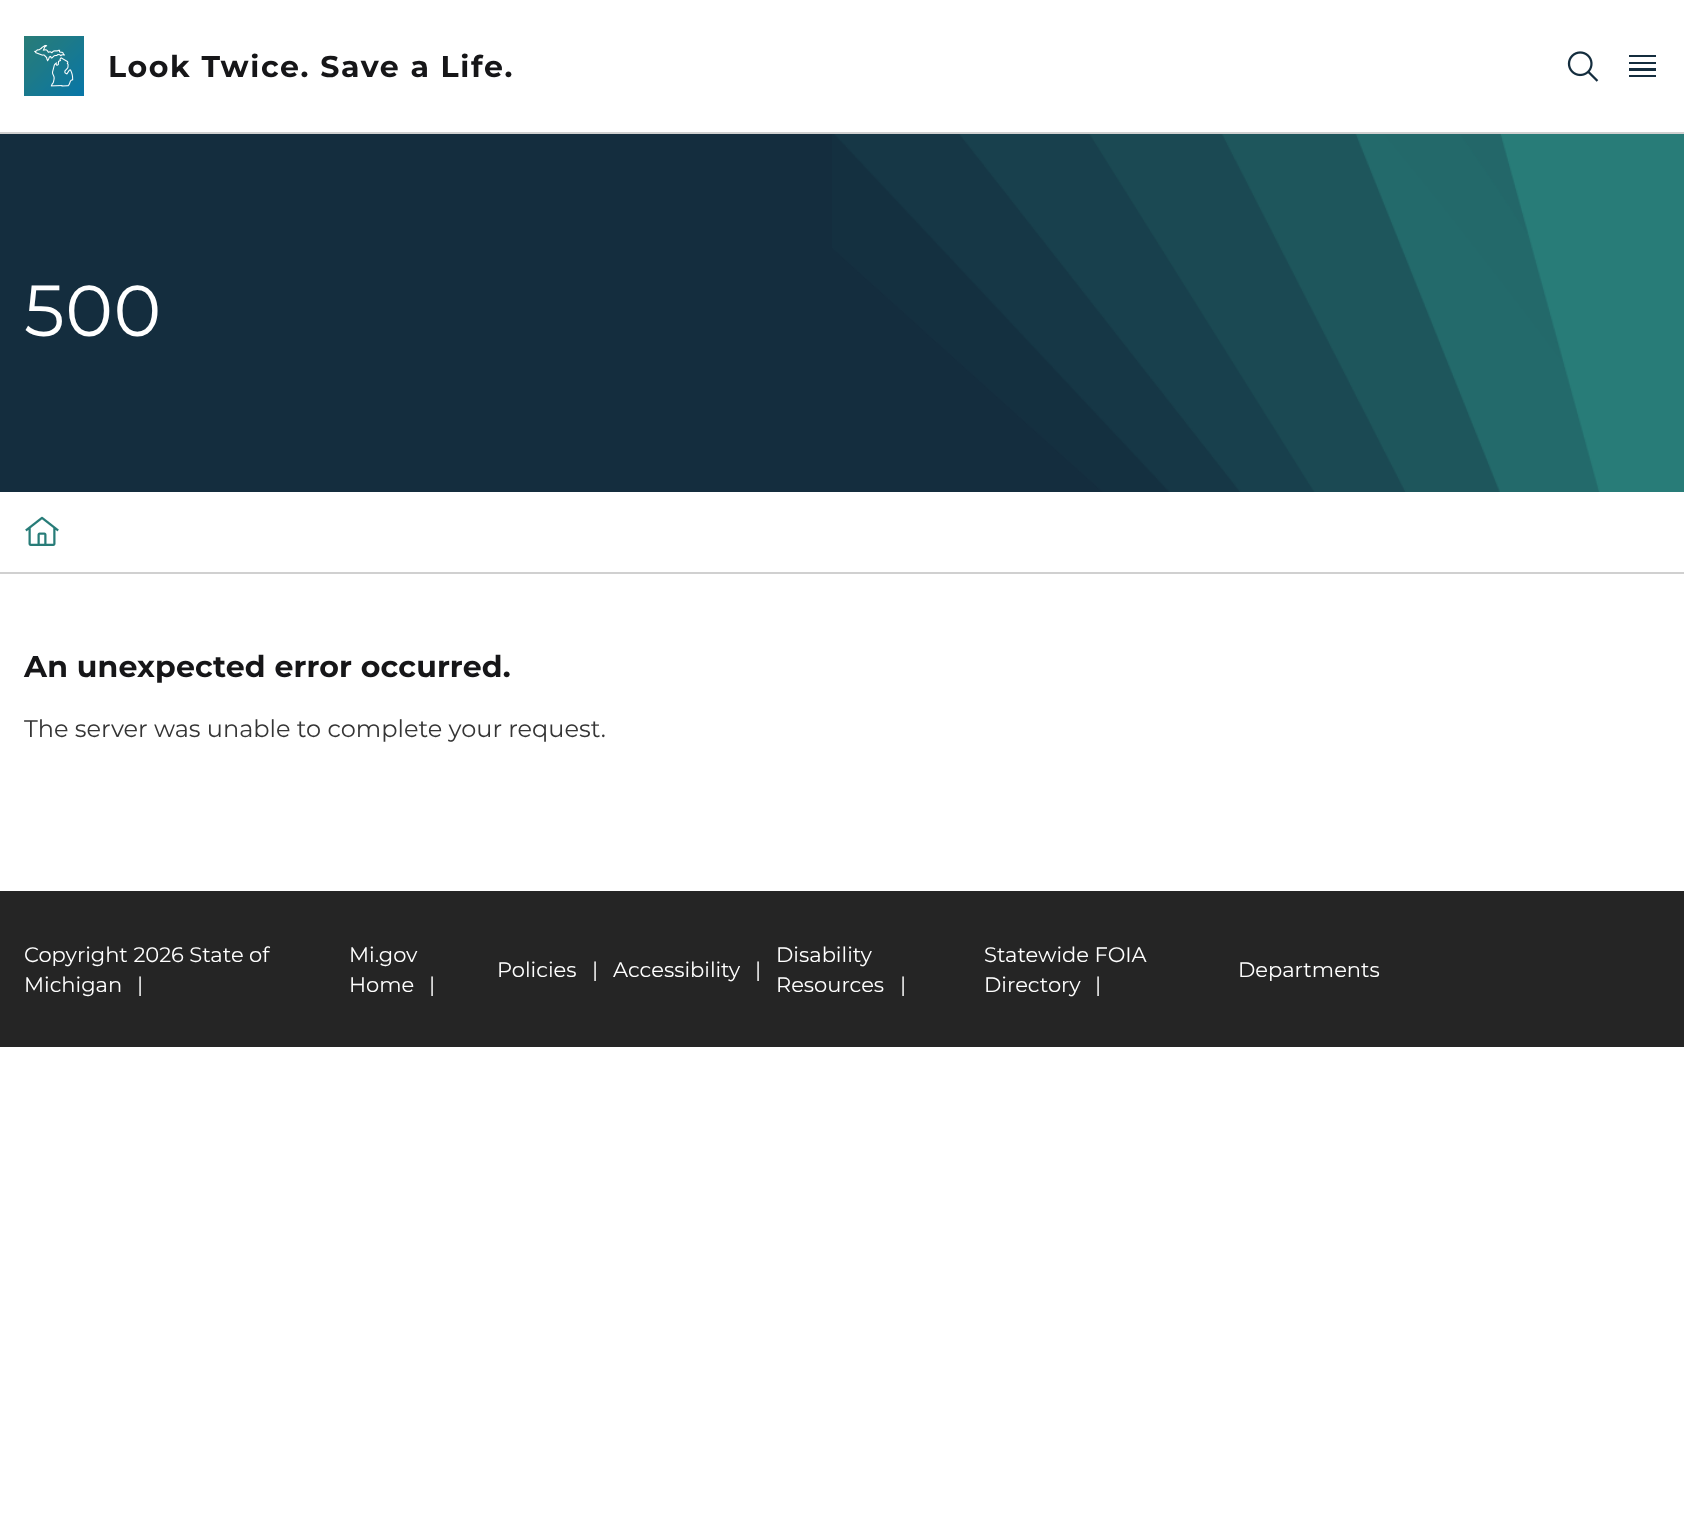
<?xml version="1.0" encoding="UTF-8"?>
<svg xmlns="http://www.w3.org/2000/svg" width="1684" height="1520">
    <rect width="100%" height="100%" fill="#FFFFFF"/>
    <rect x="0" y="132" width="1684" height="2" fill="#D0D0D0"/>
    <image x="24" y="36" width="60" height="60" href="img_01.png"/>
    <text x="108" y="77" font-family="Montserrat" font-size="30" font-weight="700" letter-spacing="1.6" fill="#161618">Look Twice. Save a Life.</text>
    <image x="1567" y="51" width="32" height="31" href="img_02.png"/>
    <rect x="1629" y="75" width="27" height="2" fill="#142D3E"/>
    <rect x="1629" y="62" width="27" height="2" fill="#142D3E"/>
    <rect x="1629" y="68" width="27" height="3" fill="#142D3E"/>
    <rect x="1629" y="55" width="27" height="2" fill="#142D3E"/>
    <rect x="0" y="134" width="1600" height="358" fill="#142D3E"/>
    <text x="24" y="336" font-family="Montserrat" font-size="72" letter-spacing="0.5" fill="#FFFFFF">500</text>
    <image x="832" y="134" width="852" height="358" href="img_03.png"/>
    <rect x="0" y="572" width="1684" height="2" fill="#D0D0D0"/>
    <image x="25" y="516" width="34" height="30" href="img_04.png"/>
    <text x="24" y="677" font-family="Montserrat" font-size="30" font-weight="700" letter-spacing="0.15" fill="#161618">An unexpected error occurred.</text>
    <text x="24" y="737" font-family="Montserrat" font-size="24" fill="#353535">The server was unable to complete your request.</text>
    <rect x="0" y="891" width="1684" height="156" fill="#252525"/>
    <text font-family="Montserrat" font-size="21" fill="#FFFFFF">
        <tspan x="24" y="962">Copyright 2026 State of</tspan>
        <tspan x="24" y="992">Michigan</tspan>
    </text>
    <text x="137" y="992" font-family="Montserrat" font-size="21" fill="#FFFFFF">|</text>
    <text font-family="Montserrat" font-size="21" fill="#FFFFFF">
        <tspan x="349" y="962">Mi.gov</tspan>
        <tspan x="349" y="992">Home</tspan>
    </text>
    <text x="429" y="992" font-family="Montserrat" font-size="21" fill="#FFFFFF">|</text>
    <text x="497" y="977" font-family="Montserrat" font-size="21" fill="#FFFFFF">Policies</text>
    <text x="592" y="977" font-family="Montserrat" font-size="21" fill="#FFFFFF">|</text>
    <text x="613" y="977" font-family="Montserrat" font-size="21" fill="#FFFFFF">Accessibility</text>
    <text x="755" y="977" font-family="Montserrat" font-size="21" fill="#FFFFFF">|</text>
    <text font-family="Montserrat" font-size="21" fill="#FFFFFF">
        <tspan x="776" y="962">Disability</tspan>
        <tspan x="776" y="992">Resources</tspan>
    </text>
    <text x="900" y="992" font-family="Montserrat" font-size="21" fill="#FFFFFF">|</text>
    <text font-family="Montserrat" font-size="21" fill="#FFFFFF">
        <tspan x="984" y="962">Statewide FOIA</tspan>
        <tspan x="984" y="992">Directory</tspan>
    </text>
    <text x="1095" y="992" font-family="Montserrat" font-size="21" fill="#FFFFFF">|</text>
    <text x="1238" y="977" font-family="Montserrat" font-size="21" fill="#FFFFFF">Departments</text>
</svg>
